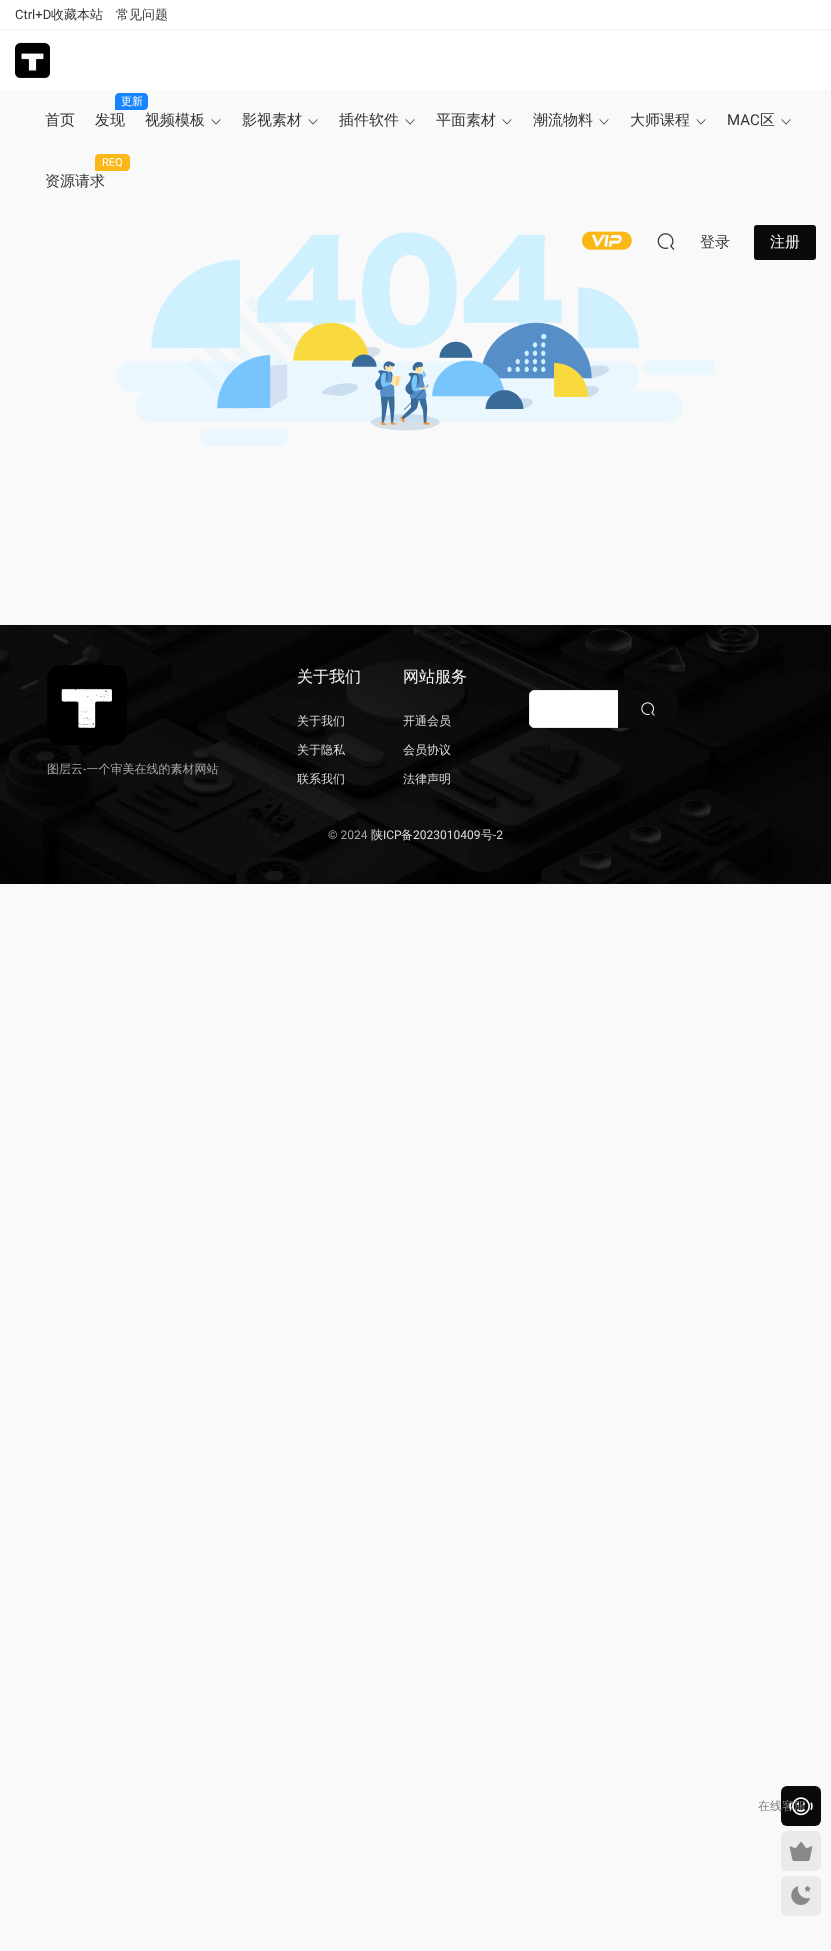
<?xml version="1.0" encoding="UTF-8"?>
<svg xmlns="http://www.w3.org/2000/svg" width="831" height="1951">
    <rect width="100%" height="100%" fill="#F9F9F9"/>
    <rect x="0" y="0" width="831" height="29" fill="#FFFFFF"/>
    <rect x="0" y="29" width="831" height="1" fill="#F1F1F1"/>
    <text x="15" y="19" font-family="Roboto" font-size="13" fill="#333333">Ctrl+D</text>
    <text x="51" y="19" font-family="WenQuanYi Zen Hei" font-size="13" font-weight="500" fill="#333333">收藏本站</text>
    <text x="116" y="19" font-family="WenQuanYi Zen Hei" font-size="13" font-weight="500" fill="#333333">常见问题</text>
    <rect x="0" y="30" width="831" height="60" fill="#FFFFFF"/>
    <image x="15" y="42" width="35" height="36" href="img_01.png"/>
    <text x="45" y="125" font-family="WenQuanYi Zen Hei" font-size="15" font-weight="500" fill="#333333">首页</text>
    <path d="M 119 93 H 144 C 146 93 148 95 148 97 V 106 C 148 108 146 110 144 110 H 115 V 97 C 115 95 117 93 119 93 Z" fill="#1784FF"/>
    <text x="121" y="105" font-family="WenQuanYi Zen Hei" font-size="11" font-weight="500" fill="#FFFFFF">更新</text>
    <text x="95" y="125" font-family="WenQuanYi Zen Hei" font-size="15" font-weight="500" fill="#333333">发现</text>
    <text x="145" y="125" font-family="WenQuanYi Zen Hei" font-size="15" font-weight="500" fill="#333333">视频模板</text>
    <image x="211" y="119" width="10" height="6" href="img_02.png"/>
    <text x="242" y="125" font-family="WenQuanYi Zen Hei" font-size="15" font-weight="500" fill="#333333">影视素材</text>
    <image x="308" y="119" width="10" height="6" href="img_02.png"/>
    <text x="339" y="125" font-family="WenQuanYi Zen Hei" font-size="15" font-weight="500" fill="#333333">插件软件</text>
    <image x="405" y="119" width="10" height="6" href="img_02.png"/>
    <text x="436" y="125" font-family="WenQuanYi Zen Hei" font-size="15" font-weight="500" fill="#333333">平面素材</text>
    <image x="502" y="119" width="10" height="6" href="img_02.png"/>
    <text x="533" y="125" font-family="WenQuanYi Zen Hei" font-size="15" font-weight="500" fill="#333333">潮流物料</text>
    <image x="599" y="119" width="10" height="6" href="img_02.png"/>
    <text x="630" y="125" font-family="WenQuanYi Zen Hei" font-size="15" font-weight="500" fill="#333333">大师课程</text>
    <image x="696" y="119" width="10" height="6" href="img_02.png"/>
    <text x="727" y="125" font-family="Roboto" font-size="15" fill="#333333">MAC</text>
    <text x="760" y="125" font-family="WenQuanYi Zen Hei" font-size="15" font-weight="500" fill="#333333">区</text>
    <image x="781" y="119" width="10" height="6" href="img_02.png"/>
    <path d="M 99 154 H 126 C 128 154 130 156 130 158 V 167 C 130 169 128 171 126 171 H 95 V 158 C 95 156 97 154 99 154 Z" fill="#FBB715"/>
    <text x="102" y="166" font-family="Roboto" font-size="11" fill="#FFFFFF">REQ</text>
    <text x="45" y="186" font-family="WenQuanYi Zen Hei" font-size="15" font-weight="500" fill="#333333">资源请求</text>
    <image x="116" y="232" width="599" height="215" href="img_05.png"/>
    <image x="582" y="231" width="50" height="19" href="img_03.png"/>
    <image x="657" y="233" width="18" height="17" href="img_04.png"/>
    <text x="700" y="247" font-family="WenQuanYi Zen Hei" font-size="15" font-weight="500" fill="#333333">登录</text>
    <rect x="754" y="225" width="62" height="35" rx="3" fill="#0A0A0A"/>
    <text x="770" y="247" font-family="WenQuanYi Zen Hei" font-size="15" font-weight="500" fill="#FFFFFF">注册</text>
    <image x="0" y="625" width="831" height="259" href="img_06.png"/>
    <text x="297" y="682" font-family="WenQuanYi Zen Hei" font-size="16" font-weight="500" fill="#F5F5F5">关于我们</text>
    <text x="297" y="725" font-family="WenQuanYi Zen Hei" font-size="12" font-weight="500" fill="#DCDCDC">关于我们</text>
    <text x="297" y="754" font-family="WenQuanYi Zen Hei" font-size="12" font-weight="500" fill="#DCDCDC">关于隐私</text>
    <text x="297" y="783" font-family="WenQuanYi Zen Hei" font-size="12" font-weight="500" fill="#DCDCDC">联系我们</text>
    <text x="403" y="682" font-family="WenQuanYi Zen Hei" font-size="16" font-weight="500" fill="#F5F5F5">网站服务</text>
    <text x="403" y="725" font-family="WenQuanYi Zen Hei" font-size="12" font-weight="500" fill="#DCDCDC">开通会员</text>
    <text x="403" y="754" font-family="WenQuanYi Zen Hei" font-size="12" font-weight="500" fill="#DCDCDC">会员协议</text>
    <text x="403" y="783" font-family="WenQuanYi Zen Hei" font-size="12" font-weight="500" fill="#DCDCDC">法律声明</text>
    <path d="M 535 690 H 618 V 728 H 535 C 531.5 728 529 725.5 529 722 V 696 C 529 692.5 531.5 690 535 690 Z" fill="#FFFFFF"/>
    <path d="M 535 690 H 618 V 728 H 535 C 532 728 529 725 529 722 V 696 C 529 693 532 690 535 690 Z M 535 691 H 618 V 727 H 535 C 532 727 530 725 530 722 V 696 C 530 693 532 691 535 691 Z" fill="#EAEAEA" fill-rule="evenodd"/>
    <path d="M 618 690 H 672 C 675.5 690 678 692.5 678 696 V 722 C 678 725.5 675.5 728 672 728 H 618 Z" fill="#0A0A0A"/>
    <image x="641" y="702" width="14" height="14" href="img_07.png"/>
    <image x="47" y="665" width="80" height="80" href="img_08.png"/>
    <text x="47" y="773" font-family="WenQuanYi Zen Hei" font-size="12" font-weight="500" fill="#A7A7A7">图层云 一个审美在线的素材网站</text>
    <text x="83" y="773" font-family="Roboto" font-size="12" fill="#A7A7A7">-</text>
    <text x="328" y="839" font-family="Roboto" font-size="12" fill="#A7A7A7">© 2024</text>
    <text x="371" y="839" font-family="WenQuanYi Zen Hei" font-size="12" font-weight="500" fill="#DCDCDC">陕</text>
    <text x="383" y="839" font-family="Roboto" font-size="12" fill="#DCDCDC">ICP</text>
    <text x="401" y="839" font-family="WenQuanYi Zen Hei" font-size="12" font-weight="500" fill="#DCDCDC">备</text>
    <text x="413" y="839" font-family="Roboto" font-size="12" fill="#DCDCDC">2023010409</text>
    <text x="481" y="839" font-family="WenQuanYi Zen Hei" font-size="12" font-weight="500" fill="#DCDCDC">号</text>
    <text x="493" y="839" font-family="Roboto" font-size="12" fill="#DCDCDC">-2</text>
    <rect x="781" y="1786" width="40" height="40" rx="6" fill="#0A0A0A"/>
    <text x="758" y="1810" font-family="WenQuanYi Zen Hei" font-size="12" font-weight="500" fill="#7D7D7D">在线客服</text>
    <image x="789" y="1797" width="24" height="19" href="img_09.png"/>
    <rect x="781" y="1831" width="40" height="40" rx="6" fill="#E9EAEA"/>
    <image x="789" y="1841" width="24" height="21" href="img_10.png"/>
    <rect x="781" y="1876" width="40" height="40" rx="6" fill="#E9EAEA"/>
    <image x="791" y="1885" width="20" height="20" href="img_11.png"/>
</svg>
